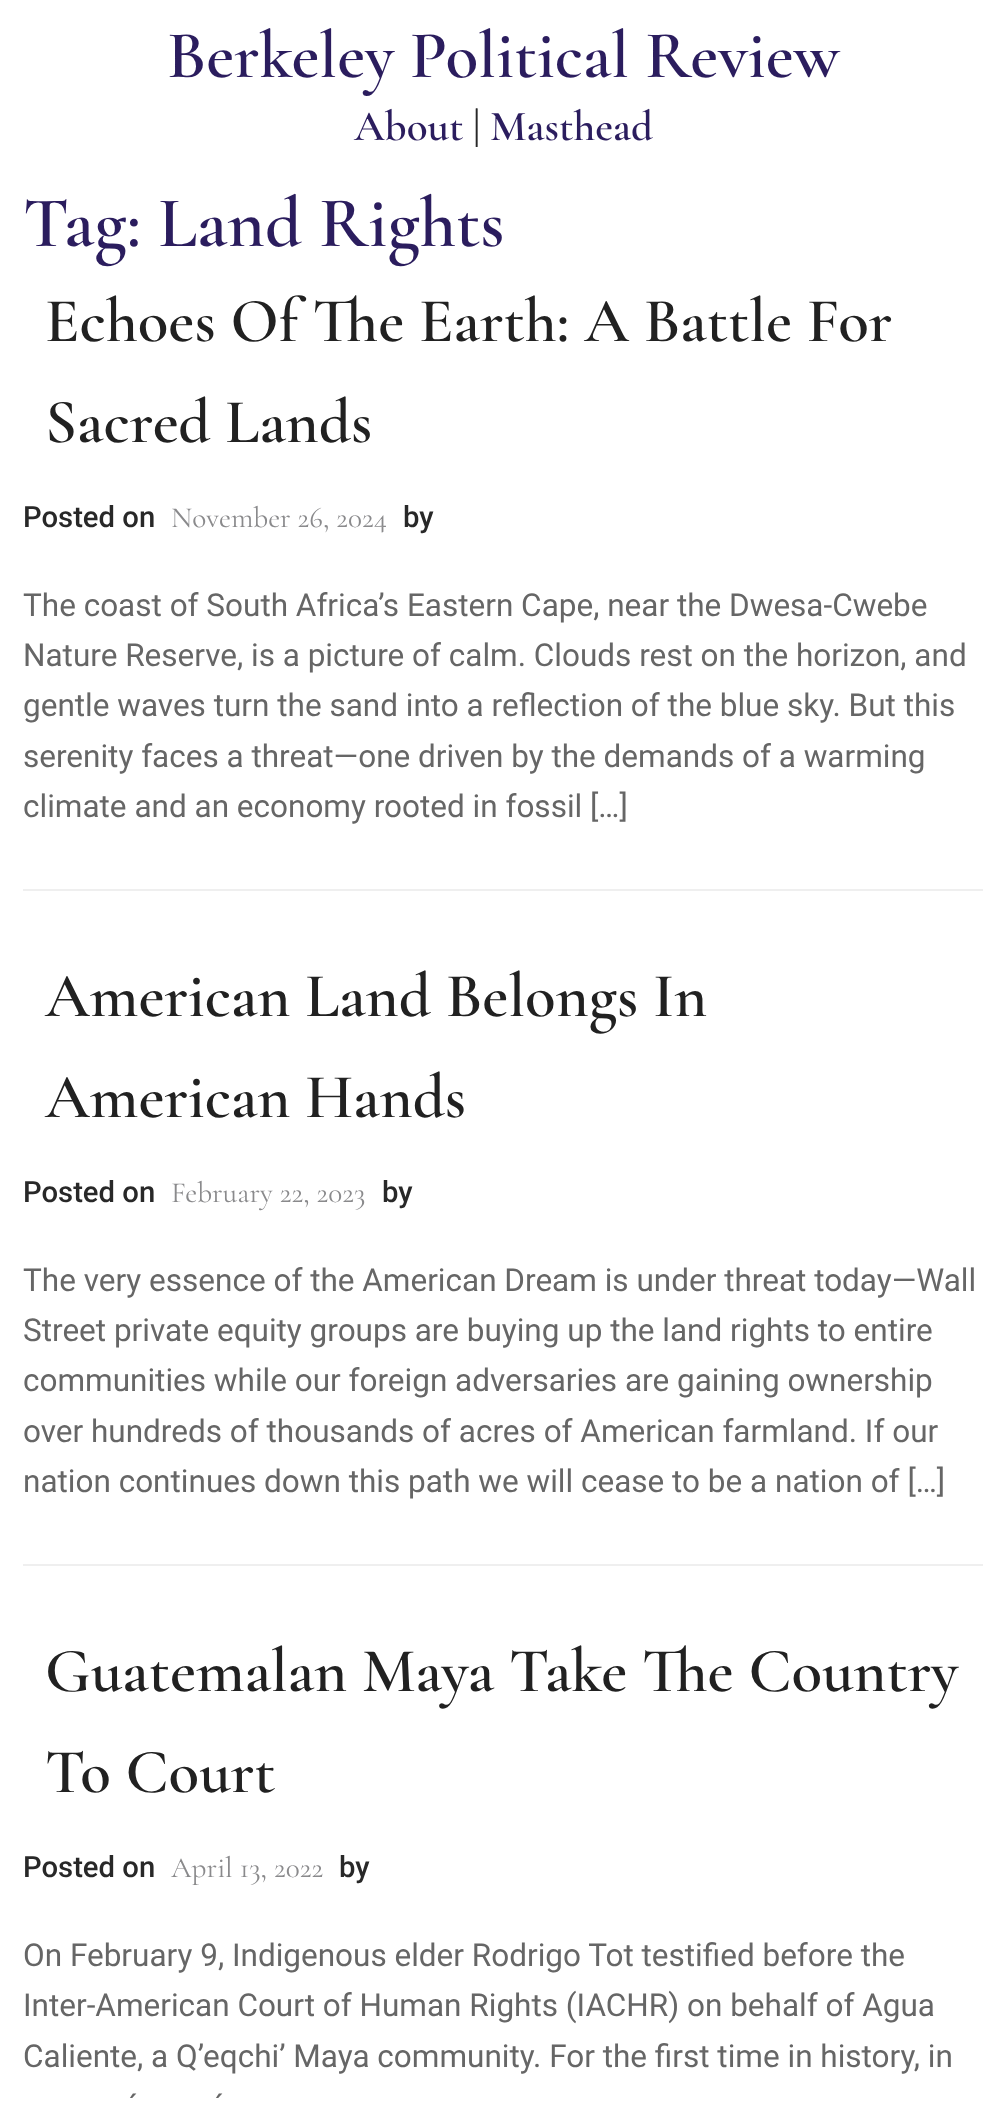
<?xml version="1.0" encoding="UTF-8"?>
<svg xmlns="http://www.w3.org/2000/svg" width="1004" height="2111">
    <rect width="100%" height="100%" fill="#FFFFFF"/>
    <text x="167" y="77" font-family="Cormorant Garamond" font-size="67.5" font-weight="600" fill="#2B1D5E">Berkeley Political Review</text>
    <text x="354" y="140" font-family="Cormorant Garamond" font-size="43" font-weight="600" fill="#2B1D5E">About</text>
    <text x="473" y="140" font-family="Cormorant Garamond" font-size="43" font-weight="600" fill="#282828">|</text>
    <text x="490" y="140" font-family="Cormorant Garamond" font-size="43" font-weight="600" fill="#2B1D5E">Masthead</text>
    <text x="23" y="246" font-family="Cormorant Garamond" font-size="72" font-weight="600" fill="#2B1D5E">Tag: Land Rights</text>
    <rect x="23" y="889" width="960" height="2" fill="#EFEFEF"/>
    <text font-family="Cormorant Garamond" font-size="63" font-weight="600" fill="#212121">
        <tspan x="45" y="341">Echoes Of The Earth: A Battle For</tspan>
        <tspan x="45" y="442">Sacred Lands</tspan>
    </text>
    <text x="23" y="527" font-family="Roboto" font-size="29.25" font-weight="500" fill="#282828">Posted on</text>
    <text x="171" y="527" font-family="Cormorant Garamond" font-size="29.25" fill="#8A8A8C">November 26, 2024</text>
    <text x="403" y="527" font-family="Roboto" font-size="29.25" font-weight="500" fill="#282828">by</text>
    <text font-family="Roboto" font-size="31.5" fill="#666666">
        <tspan x="23" y="616">The coast of South Africa’s Eastern Cape, near the Dwesa-Cwebe</tspan>
        <tspan x="23" y="666">Nature Reserve, is a picture of calm. Clouds rest on the horizon, and</tspan>
        <tspan x="23" y="716">gentle waves turn the sand into a reflection of the blue sky. But this</tspan>
        <tspan x="23" y="767">serenity faces a threat—one driven by the demands of a warming</tspan>
        <tspan x="23" y="817">climate and an economy rooted in fossil […]</tspan>
    </text>
    <rect x="23" y="1564" width="960" height="2" fill="#EFEFEF"/>
    <text font-family="Cormorant Garamond" font-size="63" font-weight="600" fill="#212121">
        <tspan x="45" y="1016">American Land Belongs In</tspan>
        <tspan x="45" y="1117">American Hands</tspan>
    </text>
    <text x="23" y="1202" font-family="Roboto" font-size="29.25" font-weight="500" fill="#282828">Posted on</text>
    <text x="171" y="1202" font-family="Cormorant Garamond" font-size="29.25" fill="#8A8A8C">February 22, 2023</text>
    <text x="382" y="1202" font-family="Roboto" font-size="29.25" font-weight="500" fill="#282828">by</text>
    <text font-family="Roboto" font-size="31.5" fill="#666666">
        <tspan x="23" y="1291">The very essence of the American Dream is under threat today—Wall</tspan>
        <tspan x="23" y="1341">Street private equity groups are buying up the land rights to entire</tspan>
        <tspan x="23" y="1391">communities while our foreign adversaries are gaining ownership</tspan>
        <tspan x="23" y="1442">over hundreds of thousands of acres of American farmland. If our</tspan>
        <tspan x="23" y="1492">nation continues down this path we will cease to be a nation of […]</tspan>
    </text>
    <text font-family="Cormorant Garamond" font-size="63" font-weight="600" fill="#212121">
        <tspan x="45" y="1691">Guatemalan Maya Take The Country</tspan>
        <tspan x="45" y="1792">To Court</tspan>
    </text>
    <text x="23" y="1877" font-family="Roboto" font-size="29.25" font-weight="500" fill="#282828">Posted on</text>
    <text x="171" y="1877" font-family="Cormorant Garamond" font-size="29.25" fill="#8A8A8C">April 13, 2022</text>
    <text x="339" y="1877" font-family="Roboto" font-size="29.25" font-weight="500" fill="#282828">by</text>
    <text font-family="Roboto" font-size="31.5" fill="#666666">
        <tspan x="23" y="1966">On February 9, Indigenous elder Rodrigo Tot testified before the</tspan>
        <tspan x="23" y="2016">Inter-American Court of Human Rights (IACHR) on behalf of Agua</tspan>
        <tspan x="23" y="2067">Caliente, a Q’eqchi’ Maya community. For the first time in history, in</tspan>
    </text>
    <text x="128" y="2117" font-family="Roboto" font-size="31.5" fill="#666666">´</text>
    <text x="214" y="2117" font-family="Roboto" font-size="31.5" fill="#666666">´</text>
</svg>
